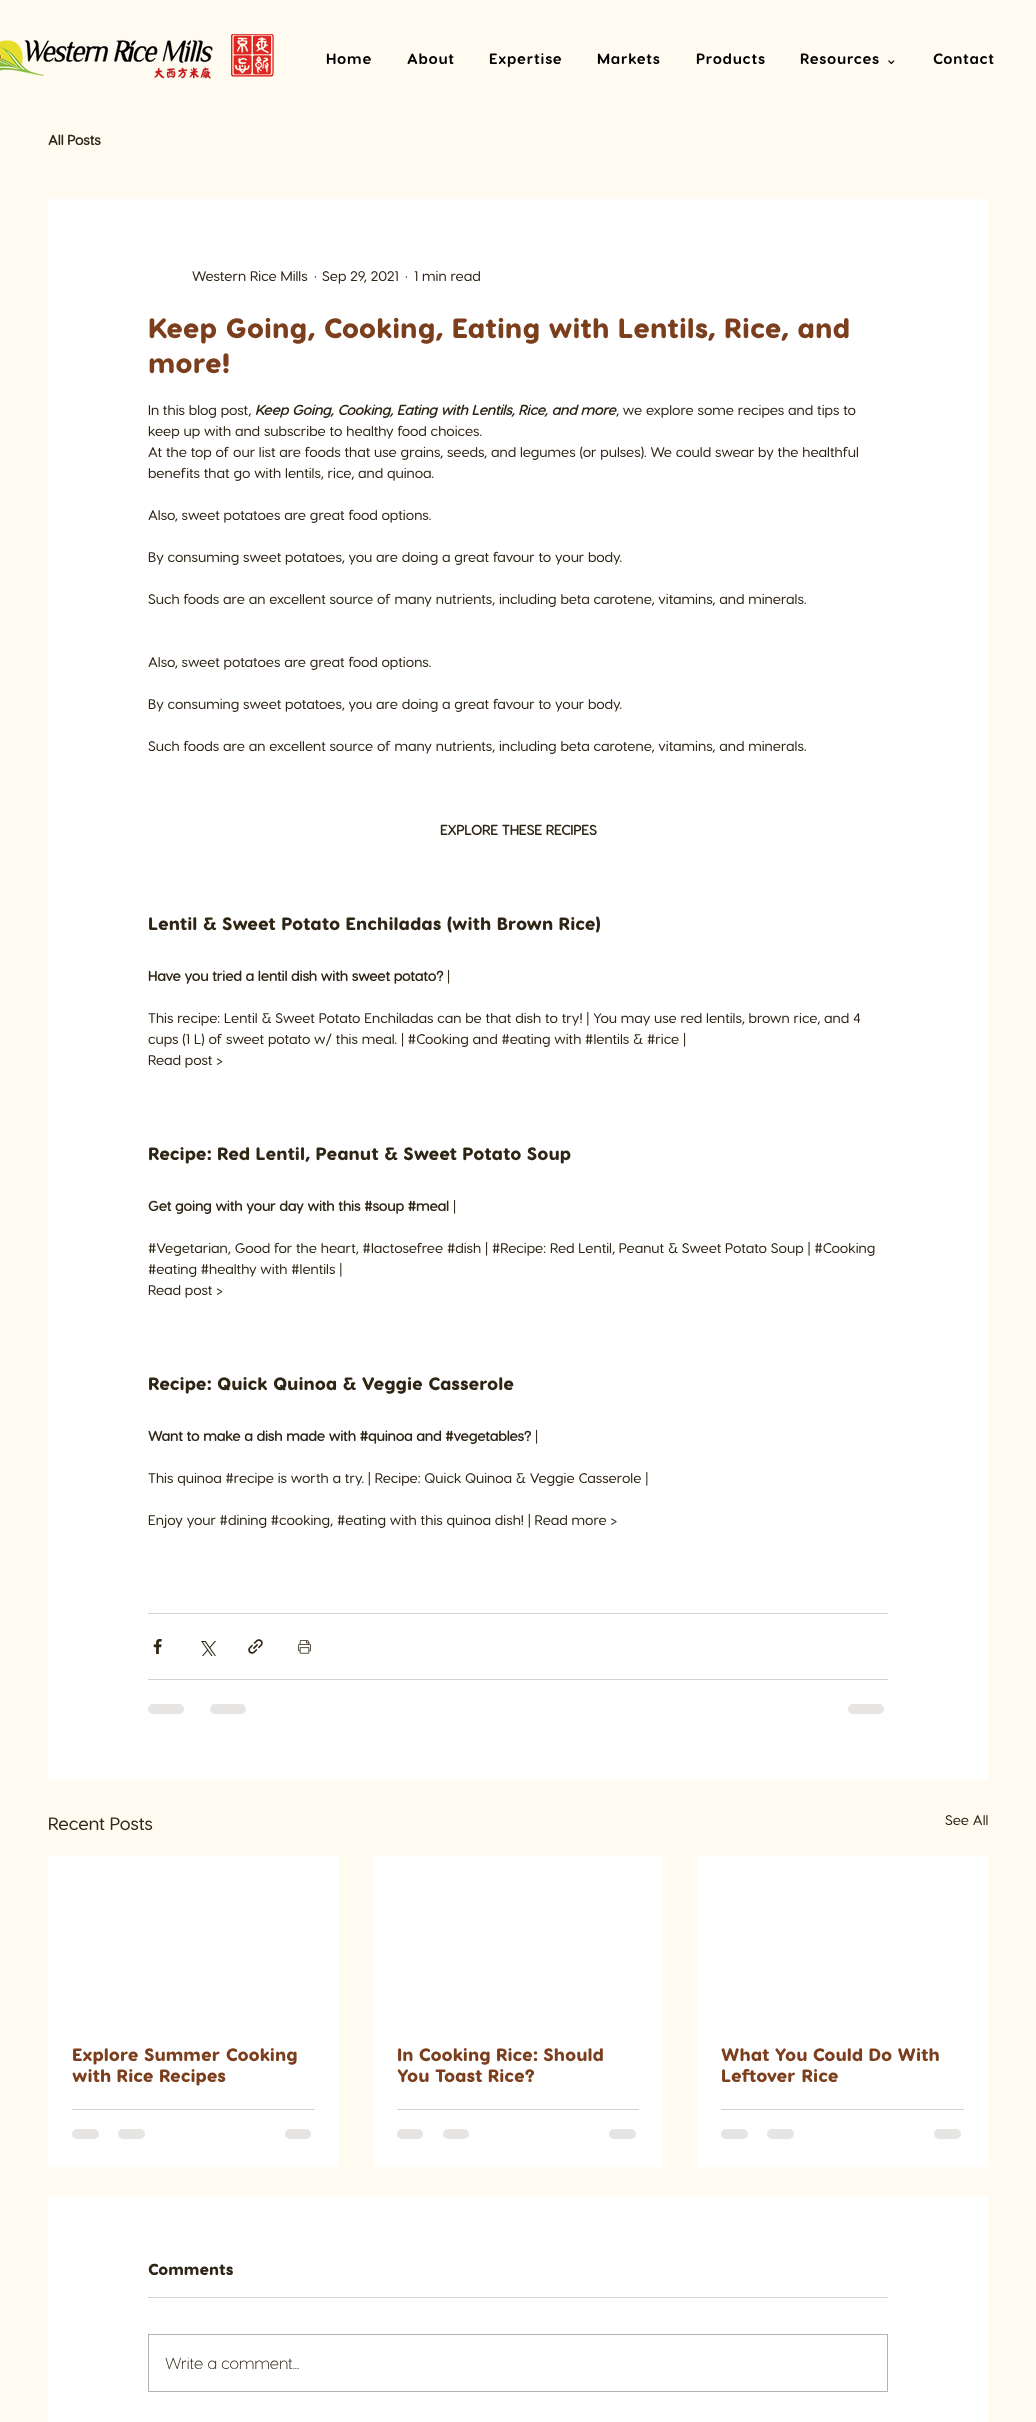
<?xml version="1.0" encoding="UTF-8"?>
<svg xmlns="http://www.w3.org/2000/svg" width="1036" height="2422">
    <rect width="100%" height="100%" fill="#FFFBF1"/>
    <image x="0" y="34" width="274" height="45" href="img_01.png"/>
    <text x="326" y="64" font-family="'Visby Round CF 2'" font-size="15" font-weight="700" letter-spacing="0.75" fill="#000000">Home</text>
    <text x="407" y="64" font-family="'Visby Round CF 2'" font-size="15" font-weight="700" letter-spacing="0.75" fill="#000000">About</text>
    <text x="489" y="64" font-family="'Visby Round CF 2'" font-size="15" font-weight="700" letter-spacing="0.75" fill="#000000">Expertise</text>
    <text x="597" y="64" font-family="'Visby Round CF 2'" font-size="15" font-weight="700" letter-spacing="0.75" fill="#000000">Markets</text>
    <text x="696" y="64" font-family="'Visby Round CF 2'" font-size="15" font-weight="700" letter-spacing="0.75" fill="#000000">Products</text>
    <text x="800" y="64" font-family="'Visby Round CF 2'" font-size="15" font-weight="700" letter-spacing="0.75" fill="#000000">Resources</text>
    <text x="885" y="64" font-family="DejaVu Sans" font-size="15" letter-spacing="0.75" fill="#000000">⌄</text>
    <text x="933" y="64" font-family="'Visby Round CF 2'" font-size="15" font-weight="700" letter-spacing="0.75" fill="#000000">Contact</text>
    <text x="48" y="145" font-family="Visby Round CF" font-size="14" font-weight="700" fill="#2E2515">All Posts</text>
    <rect x="48" y="199" width="940" height="1580" fill="#FFFFFF"/>
    <text x="192" y="281" font-family="Visby Round CF" font-size="14" font-weight="500" fill="#2E2515">Western Rice Mills</text>
    <text x="314" y="281" font-family="Visby Round CF" font-size="14" font-weight="500" fill="#2E2515">·</text>
    <text x="322" y="281" font-family="Visby Round CF" font-size="14" font-weight="500" fill="#2E2515">Sep 29, 2021</text>
    <text x="405" y="281" font-family="Visby Round CF" font-size="14" font-weight="500" fill="#2E2515">·</text>
    <text x="414" y="281" font-family="Visby Round CF" font-size="14" font-weight="500" fill="#2E2515">1 min read</text>
    <text font-family="Visby Round CF" font-size="28" font-weight="900" fill="#7C3F1E">
        <tspan x="148" y="338">Keep Going, Cooking, Eating with Lentils, Rice, and</tspan>
        <tspan x="148" y="373">more!</tspan>
    </text>
    <text x="148" y="415" font-family="Visby Round CF" font-size="14" font-weight="500" fill="#2E2515">In this blog post,</text>
    <text x="255" y="415" font-family="Visby Round CF" font-size="14" font-weight="700" font-style="italic" fill="#2E2515">Keep Going, Cooking, Eating with Lentils, Rice, and more</text>
    <text x="616" y="415" font-family="Visby Round CF" font-size="14" font-weight="500" fill="#2E2515">, we explore some recipes and tips to</text>
    <text font-family="Visby Round CF" font-size="14" font-weight="500" fill="#2E2515">
        <tspan x="148" y="436">keep up with and subscribe to healthy food choices.</tspan>
        <tspan x="148" y="457">At the top of our list are foods that use grains, seeds, and legumes (or pulses). We could swear by the healthful</tspan>
        <tspan x="148" y="478">benefits that go with lentils, rice, and quinoa.</tspan>
    </text>
    <text x="148" y="520" font-family="Visby Round CF" font-size="14" font-weight="500" fill="#2E2515">Also, sweet potatoes are great food options.</text>
    <text x="148" y="562" font-family="Visby Round CF" font-size="14" font-weight="500" fill="#2E2515">By consuming sweet potatoes, you are doing a great favour to your body.</text>
    <text x="148" y="604" font-family="Visby Round CF" font-size="14" font-weight="500" fill="#2E2515">Such foods are an excellent source of many nutrients, including beta carotene, vitamins, and minerals.</text>
    <text x="148" y="667" font-family="Visby Round CF" font-size="14" font-weight="500" fill="#2E2515">Also, sweet potatoes are great food options.</text>
    <text x="148" y="709" font-family="Visby Round CF" font-size="14" font-weight="500" fill="#2E2515">By consuming sweet potatoes, you are doing a great favour to your body.</text>
    <text x="148" y="751" font-family="Visby Round CF" font-size="14" font-weight="500" fill="#2E2515">Such foods are an excellent source of many nutrients, including beta carotene, vitamins, and minerals.</text>
    <text x="440" y="835" font-family="Visby Round CF" font-size="14" font-weight="700" fill="#2E2515">EXPLORE THESE RECIPES</text>
    <text x="148" y="930" font-family="Visby Round CF" font-size="18" font-weight="900" fill="#2E2515">Lentil &amp; Sweet Potato Enchiladas (with Brown Rice)</text>
    <text x="148" y="981" font-family="Visby Round CF" font-size="14" font-weight="700" fill="#2E2515">Have you tried a lentil dish with sweet potato?</text>
    <text x="447" y="981" font-family="Visby Round CF" font-size="14" font-weight="500" fill="#2E2515">|</text>
    <text font-family="Visby Round CF" font-size="14" font-weight="500" fill="#2E2515">
        <tspan x="148" y="1023">This recipe: Lentil &amp; Sweet Potato Enchiladas can be that dish to try! | You may use red lentils, brown rice, and 4</tspan>
        <tspan x="148" y="1044">cups (1 L) of sweet potato w/ this meal. | #Cooking and #eating with #lentils &amp; #rice |</tspan>
        <tspan x="148" y="1065">Read post &gt;</tspan>
    </text>
    <text x="148" y="1160" font-family="Visby Round CF" font-size="18" font-weight="900" fill="#2E2515">Recipe: Red Lentil, Peanut &amp; Sweet Potato Soup</text>
    <text x="148" y="1211" font-family="Visby Round CF" font-size="14" font-weight="700" fill="#2E2515">Get going with your day with this #soup #meal</text>
    <text x="453" y="1211" font-family="Visby Round CF" font-size="14" font-weight="500" fill="#2E2515">|</text>
    <text font-family="Visby Round CF" font-size="14" font-weight="500" fill="#2E2515">
        <tspan x="148" y="1253">#Vegetarian, Good for the heart, #lactosefree #dish | #Recipe: Red Lentil, Peanut &amp; Sweet Potato Soup | #Cooking</tspan>
        <tspan x="148" y="1274">#eating #healthy with #lentils |</tspan>
        <tspan x="148" y="1295">Read post &gt;</tspan>
    </text>
    <text x="148" y="1390" font-family="Visby Round CF" font-size="18" font-weight="900" fill="#2E2515">Recipe: Quick Quinoa &amp; Veggie Casserole</text>
    <text x="148" y="1441" font-family="Visby Round CF" font-size="14" font-weight="700" fill="#2E2515">Want to make a dish made with #quinoa and #vegetables?</text>
    <text x="535" y="1441" font-family="Visby Round CF" font-size="14" font-weight="500" fill="#2E2515">|</text>
    <text x="148" y="1483" font-family="Visby Round CF" font-size="14" font-weight="500" fill="#2E2515">This quinoa #recipe is worth a try. | Recipe: Quick Quinoa &amp; Veggie Casserole |</text>
    <text x="148" y="1525" font-family="Visby Round CF" font-size="14" font-weight="500" fill="#2E2515">Enjoy your #dining #cooking, #eating with this quinoa dish! | Read more &gt;</text>
    <rect x="148" y="1613" width="740" height="1" fill="#D5D3D0"/>
    <image x="153" y="1639" width="9" height="15" href="img_02.png"/>
    <image x="201" y="1641" width="15" height="15" href="img_03.png"/>
    <image x="248" y="1639" width="15" height="15" href="img_04.png"/>
    <image x="298" y="1640" width="13" height="14" href="img_05.png"/>
    <rect x="148" y="1679" width="740" height="1" fill="#D5D3D0"/>
    <rect x="148" y="1704" width="36" height="10" rx="5" fill="#E6E5E3"/>
    <rect x="210" y="1704" width="36" height="10" rx="5" fill="#E6E5E3"/>
    <rect x="848" y="1704" width="36" height="10" rx="5" fill="#E6E5E3"/>
    <text x="48" y="1830" font-family="Visby Round CF" font-size="18" font-weight="500" fill="#2E2515">Recent Posts</text>
    <text x="945" y="1825" font-family="Visby Round CF" font-size="14" font-weight="500" fill="#2E2515">See All</text>
    <rect x="48" y="1856" width="291" height="311" fill="#FFFFFF"/>
    <text font-family="Visby Round CF" font-size="18" font-weight="900" fill="#7C3F1E">
        <tspan x="72" y="2061">Explore Summer Cooking</tspan>
        <tspan x="72" y="2082">with Rice Recipes</tspan>
    </text>
    <rect x="72" y="2109" width="243" height="1" fill="#D5D3D0"/>
    <rect x="72" y="2129" width="27" height="10" rx="5" fill="#E6E5E3"/>
    <rect x="118" y="2129" width="27" height="10" rx="5" fill="#E6E5E3"/>
    <rect x="285" y="2129" width="26" height="10" rx="5" fill="#E6E5E3"/>
    <rect x="373" y="1856" width="290" height="311" fill="#FFFFFF"/>
    <text font-family="Visby Round CF" font-size="18" font-weight="900" fill="#7C3F1E">
        <tspan x="397" y="2061">In Cooking Rice: Should</tspan>
        <tspan x="397" y="2082">You Toast Rice?</tspan>
    </text>
    <rect x="397" y="2109" width="242" height="1" fill="#D5D3D0"/>
    <rect x="397" y="2129" width="26" height="10" rx="5" fill="#E6E5E3"/>
    <rect x="443" y="2129" width="26" height="10" rx="5" fill="#E6E5E3"/>
    <rect x="609" y="2129" width="27" height="10" rx="5" fill="#E6E5E3"/>
    <rect x="697" y="1856" width="291" height="311" fill="#FFFFFF"/>
    <text font-family="Visby Round CF" font-size="18" font-weight="900" fill="#7C3F1E">
        <tspan x="721" y="2061">What You Could Do With</tspan>
        <tspan x="721" y="2082">Leftover Rice</tspan>
    </text>
    <rect x="721" y="2109" width="243" height="1" fill="#D5D3D0"/>
    <rect x="721" y="2129" width="27" height="10" rx="5" fill="#E6E5E3"/>
    <rect x="767" y="2129" width="27" height="10" rx="5" fill="#E6E5E3"/>
    <rect x="934" y="2129" width="27" height="10" rx="5" fill="#E6E5E3"/>
    <rect x="48" y="2197" width="940" height="225" fill="#FFFFFF"/>
    <text x="148" y="2275" font-family="Visby Round CF" font-size="16" font-weight="900" fill="#2E2515">Comments</text>
    <rect x="148" y="2297" width="740" height="1" fill="#D5D3D0"/>
    <rect x="148.5" y="2334.5" width="739" height="57" fill="none" stroke="#B3B3B3"/>
    <text x="165" y="2369" font-family="Visby Round CF" font-size="16" font-weight="300" fill="#2E2515">Write a comment...</text>
</svg>
